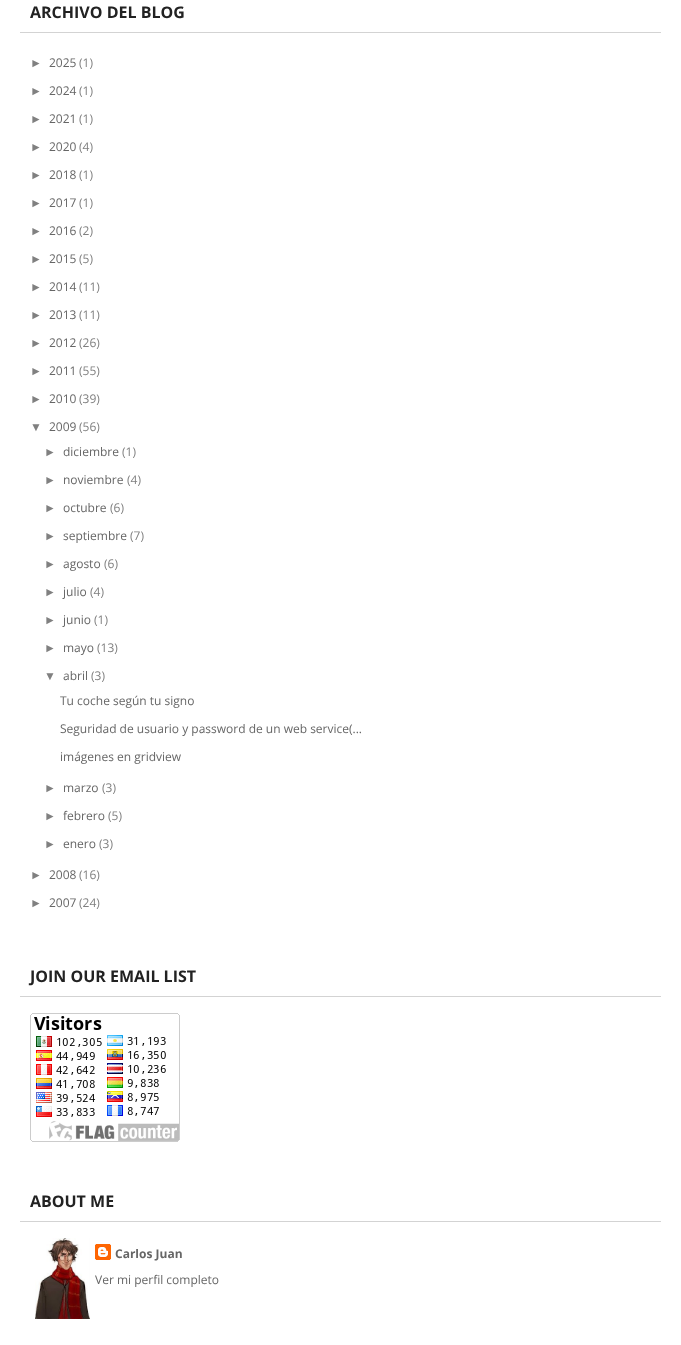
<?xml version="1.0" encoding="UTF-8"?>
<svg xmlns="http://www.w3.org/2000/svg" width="681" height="1345">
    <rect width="100%" height="100%" fill="#FFFFFF"/>
    <rect x="20" y="32" width="641" height="1" fill="#D3D3D3"/>
    <text x="30" y="18" font-family="Open Sans" font-size="16" font-weight="700" fill="#222222">ARCHIVO DEL BLOG</text>
    <text x="30" y="67" font-family="Liberation Sans" font-size="12" fill="#808080">►</text>
    <text x="49" y="67" font-family="Open Sans" font-size="12" fill="#666666">2025</text>
    <text x="79" y="67" font-family="Open Sans" font-size="12" fill="#808080">(1)</text>
    <text x="30" y="95" font-family="Liberation Sans" font-size="12" fill="#808080">►</text>
    <text x="49" y="95" font-family="Open Sans" font-size="12" fill="#666666">2024</text>
    <text x="79" y="95" font-family="Open Sans" font-size="12" fill="#808080">(1)</text>
    <text x="30" y="123" font-family="Liberation Sans" font-size="12" fill="#808080">►</text>
    <text x="49" y="123" font-family="Open Sans" font-size="12" fill="#666666">2021</text>
    <text x="79" y="123" font-family="Open Sans" font-size="12" fill="#808080">(1)</text>
    <text x="30" y="151" font-family="Liberation Sans" font-size="12" fill="#808080">►</text>
    <text x="49" y="151" font-family="Open Sans" font-size="12" fill="#666666">2020</text>
    <text x="79" y="151" font-family="Open Sans" font-size="12" fill="#808080">(4)</text>
    <text x="30" y="179" font-family="Liberation Sans" font-size="12" fill="#808080">►</text>
    <text x="49" y="179" font-family="Open Sans" font-size="12" fill="#666666">2018</text>
    <text x="79" y="179" font-family="Open Sans" font-size="12" fill="#808080">(1)</text>
    <text x="30" y="207" font-family="Liberation Sans" font-size="12" fill="#808080">►</text>
    <text x="49" y="207" font-family="Open Sans" font-size="12" fill="#666666">2017</text>
    <text x="79" y="207" font-family="Open Sans" font-size="12" fill="#808080">(1)</text>
    <text x="30" y="235" font-family="Liberation Sans" font-size="12" fill="#808080">►</text>
    <text x="49" y="235" font-family="Open Sans" font-size="12" fill="#666666">2016</text>
    <text x="79" y="235" font-family="Open Sans" font-size="12" fill="#808080">(2)</text>
    <text x="30" y="263" font-family="Liberation Sans" font-size="12" fill="#808080">►</text>
    <text x="49" y="263" font-family="Open Sans" font-size="12" fill="#666666">2015</text>
    <text x="79" y="263" font-family="Open Sans" font-size="12" fill="#808080">(5)</text>
    <text x="30" y="291" font-family="Liberation Sans" font-size="12" fill="#808080">►</text>
    <text x="49" y="291" font-family="Open Sans" font-size="12" fill="#666666">2014</text>
    <text x="79" y="291" font-family="Open Sans" font-size="12" fill="#808080">(11)</text>
    <text x="30" y="319" font-family="Liberation Sans" font-size="12" fill="#808080">►</text>
    <text x="49" y="319" font-family="Open Sans" font-size="12" fill="#666666">2013</text>
    <text x="79" y="319" font-family="Open Sans" font-size="12" fill="#808080">(11)</text>
    <text x="30" y="347" font-family="Liberation Sans" font-size="12" fill="#808080">►</text>
    <text x="49" y="347" font-family="Open Sans" font-size="12" fill="#666666">2012</text>
    <text x="79" y="347" font-family="Open Sans" font-size="12" fill="#808080">(26)</text>
    <text x="30" y="375" font-family="Liberation Sans" font-size="12" fill="#808080">►</text>
    <text x="49" y="375" font-family="Open Sans" font-size="12" fill="#666666">2011</text>
    <text x="79" y="375" font-family="Open Sans" font-size="12" fill="#808080">(55)</text>
    <text x="30" y="403" font-family="Liberation Sans" font-size="12" fill="#808080">►</text>
    <text x="49" y="403" font-family="Open Sans" font-size="12" fill="#666666">2010</text>
    <text x="79" y="403" font-family="Open Sans" font-size="12" fill="#808080">(39)</text>
    <text x="30" y="431" font-family="Liberation Sans" font-size="12" fill="#808080">▼</text>
    <text x="49" y="431" font-family="Open Sans" font-size="12" fill="#666666">2009</text>
    <text x="79" y="431" font-family="Open Sans" font-size="12" fill="#808080">(56)</text>
    <text x="44" y="456" font-family="Liberation Sans" font-size="12" fill="#808080">►</text>
    <text x="63" y="456" font-family="Open Sans" font-size="12" fill="#666666">diciembre</text>
    <text x="122" y="456" font-family="Open Sans" font-size="12" fill="#808080">(1)</text>
    <text x="44" y="484" font-family="Liberation Sans" font-size="12" fill="#808080">►</text>
    <text x="63" y="484" font-family="Open Sans" font-size="12" fill="#666666">noviembre</text>
    <text x="127" y="484" font-family="Open Sans" font-size="12" fill="#808080">(4)</text>
    <text x="44" y="512" font-family="Liberation Sans" font-size="12" fill="#808080">►</text>
    <text x="63" y="512" font-family="Open Sans" font-size="12" fill="#666666">octubre</text>
    <text x="110" y="512" font-family="Open Sans" font-size="12" fill="#808080">(6)</text>
    <text x="44" y="540" font-family="Liberation Sans" font-size="12" fill="#808080">►</text>
    <text x="63" y="540" font-family="Open Sans" font-size="12" fill="#666666">septiembre</text>
    <text x="130" y="540" font-family="Open Sans" font-size="12" fill="#808080">(7)</text>
    <text x="44" y="568" font-family="Liberation Sans" font-size="12" fill="#808080">►</text>
    <text x="63" y="568" font-family="Open Sans" font-size="12" fill="#666666">agosto</text>
    <text x="104" y="568" font-family="Open Sans" font-size="12" fill="#808080">(6)</text>
    <text x="44" y="596" font-family="Liberation Sans" font-size="12" fill="#808080">►</text>
    <text x="63" y="596" font-family="Open Sans" font-size="12" fill="#666666">julio</text>
    <text x="90" y="596" font-family="Open Sans" font-size="12" fill="#808080">(4)</text>
    <text x="44" y="624" font-family="Liberation Sans" font-size="12" fill="#808080">►</text>
    <text x="63" y="624" font-family="Open Sans" font-size="12" fill="#666666">junio</text>
    <text x="94" y="624" font-family="Open Sans" font-size="12" fill="#808080">(1)</text>
    <text x="44" y="652" font-family="Liberation Sans" font-size="12" fill="#808080">►</text>
    <text x="63" y="652" font-family="Open Sans" font-size="12" fill="#666666">mayo</text>
    <text x="97" y="652" font-family="Open Sans" font-size="12" fill="#808080">(13)</text>
    <text x="44" y="680" font-family="Liberation Sans" font-size="12" fill="#808080">▼</text>
    <text x="63" y="680" font-family="Open Sans" font-size="12" fill="#666666">abril</text>
    <text x="91" y="680" font-family="Open Sans" font-size="12" fill="#808080">(3)</text>
    <text x="60" y="705" font-family="Open Sans" font-size="12" fill="#666666">Tu coche según tu signo</text>
    <text x="60" y="733" font-family="Open Sans" font-size="12" fill="#666666">Seguridad de usuario y password de un web service(...</text>
    <text x="60" y="761" font-family="Open Sans" font-size="12" fill="#666666">imágenes en gridview</text>
    <text x="44" y="792" font-family="Liberation Sans" font-size="12" fill="#808080">►</text>
    <text x="63" y="792" font-family="Open Sans" font-size="12" fill="#666666">marzo</text>
    <text x="102" y="792" font-family="Open Sans" font-size="12" fill="#808080">(3)</text>
    <text x="44" y="820" font-family="Liberation Sans" font-size="12" fill="#808080">►</text>
    <text x="63" y="820" font-family="Open Sans" font-size="12" fill="#666666">febrero</text>
    <text x="108" y="820" font-family="Open Sans" font-size="12" fill="#808080">(5)</text>
    <text x="44" y="848" font-family="Liberation Sans" font-size="12" fill="#808080">►</text>
    <text x="63" y="848" font-family="Open Sans" font-size="12" fill="#666666">enero</text>
    <text x="99" y="848" font-family="Open Sans" font-size="12" fill="#808080">(3)</text>
    <text x="30" y="879" font-family="Liberation Sans" font-size="12" fill="#808080">►</text>
    <text x="49" y="879" font-family="Open Sans" font-size="12" fill="#666666">2008</text>
    <text x="79" y="879" font-family="Open Sans" font-size="12" fill="#808080">(16)</text>
    <text x="30" y="907" font-family="Liberation Sans" font-size="12" fill="#808080">►</text>
    <text x="49" y="907" font-family="Open Sans" font-size="12" fill="#666666">2007</text>
    <text x="79" y="907" font-family="Open Sans" font-size="12" fill="#808080">(24)</text>
    <rect x="20" y="996" width="641" height="1" fill="#D3D3D3"/>
    <text x="30" y="982" font-family="Open Sans" font-size="16" font-weight="700" fill="#222222">JOIN OUR EMAIL LIST</text>
    <image x="30" y="1013" width="150" height="129" href="img_01.png"/>
    <rect x="20" y="1221" width="641" height="1" fill="#D3D3D3"/>
    <text x="30" y="1207" font-family="Open Sans" font-size="16" font-weight="700" fill="#222222">ABOUT ME</text>
    <image x="35" y="1238" width="55" height="81" href="img_02.png"/>
    <image x="95" y="1244" width="16" height="16" href="img_03.png"/>
    <text x="115" y="1258" font-family="Open Sans" font-size="12" font-weight="700" fill="#666666">Carlos Juan</text>
    <text x="95" y="1284" font-family="Open Sans" font-size="12" fill="#666666">Ver mi perfil completo</text>
</svg>
